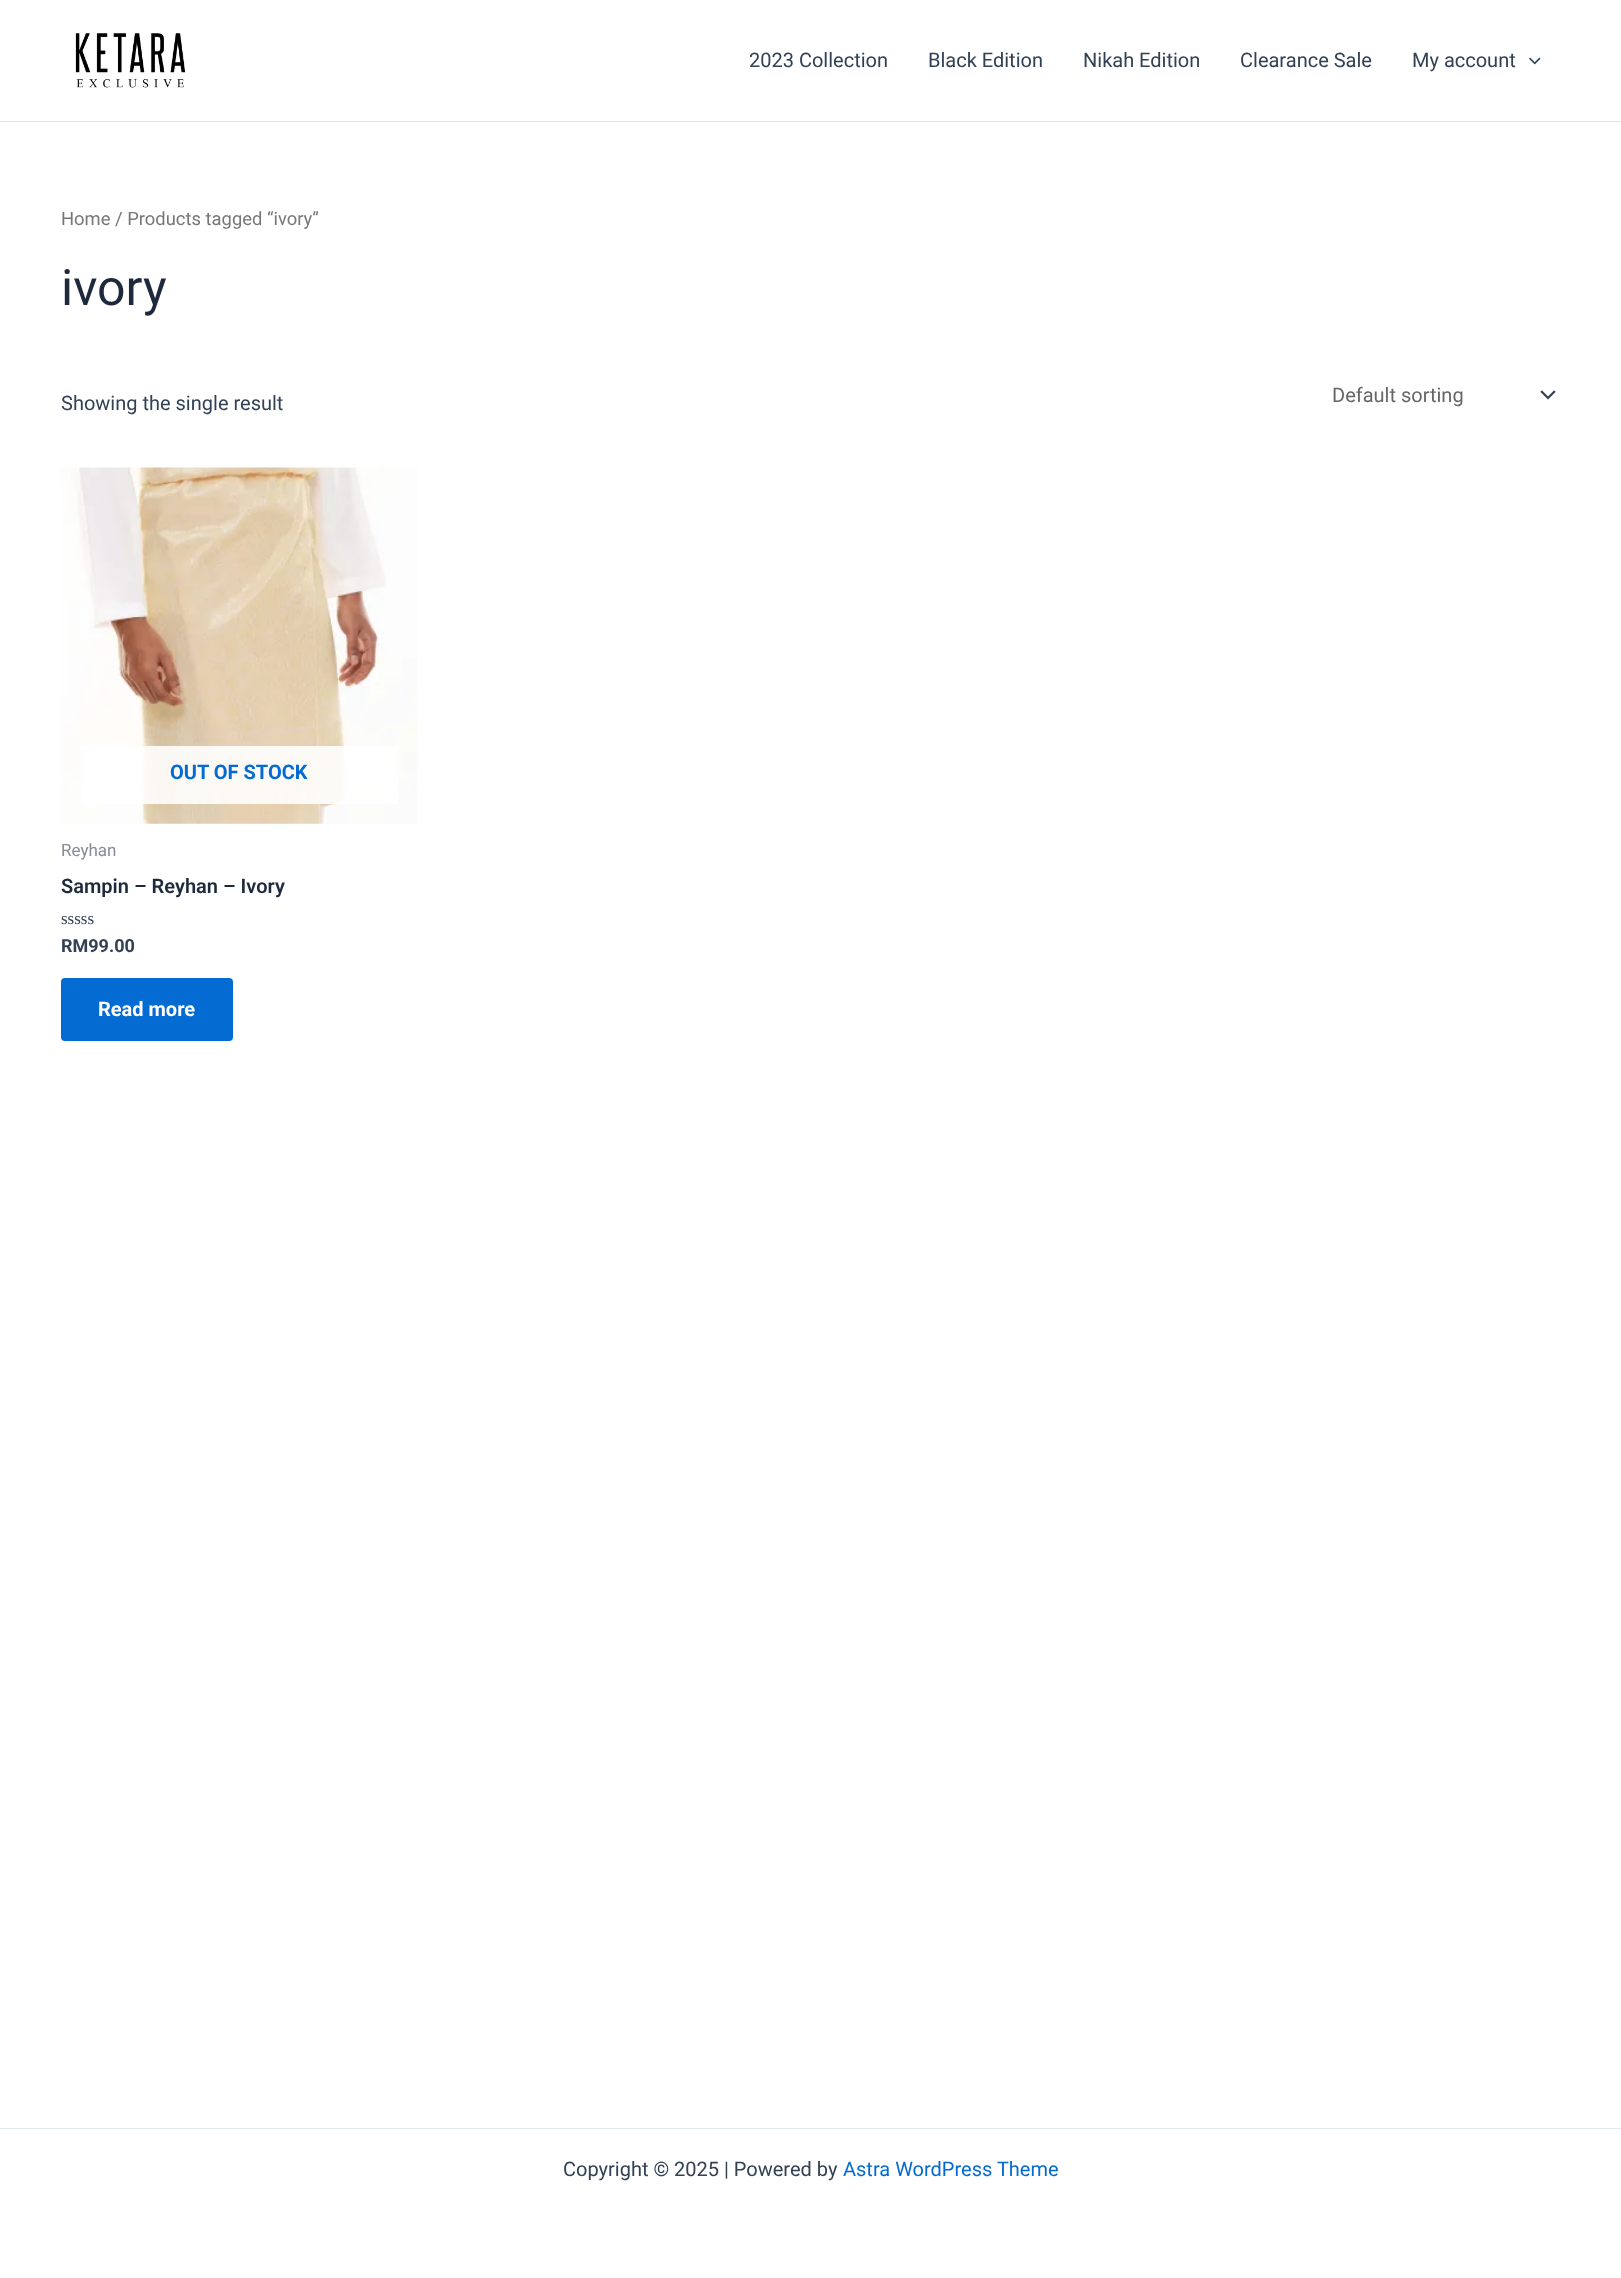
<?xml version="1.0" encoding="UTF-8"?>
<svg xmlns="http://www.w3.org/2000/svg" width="1621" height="2278">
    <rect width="100%" height="100%" fill="#FFFFFF"/>
    <rect x="0" y="121" width="1621" height="1" fill="#E2E8F0"/>
    <image x="75" y="33" width="111" height="55" href="img_01.png"/>
    <text x="749" y="67" font-family="Roboto" font-size="20" fill="#334155">2023 Collection</text>
    <text x="928" y="67" font-family="Roboto" font-size="20" fill="#334155">Black Edition</text>
    <text x="1083" y="67" font-family="Roboto" font-size="20" fill="#334155">Nikah Edition</text>
    <text x="1240" y="67" font-family="Roboto" font-size="20" fill="#334155">Clearance Sale</text>
    <text x="1412" y="67" font-family="Roboto" font-size="20" fill="#334155">My account</text>
    <image x="1529" y="57" width="12" height="8" href="img_02.png"/>
    <text x="61" y="225" font-family="Roboto" font-size="18.4" fill="#777777">Home / Products tagged “ivory”</text>
    <text x="61" y="305" font-family="Roboto" font-size="50" fill="#1E293B">ivory</text>
    <text x="61" y="410" font-family="Roboto" font-size="20" fill="#334155">Showing the single result</text>
    <image x="1540" y="390" width="16" height="10" href="img_03.png"/>
    <text x="1332" y="402" font-family="Roboto" font-size="20" fill="#666666">Default sorting</text>
    <image x="61" y="467" width="357" height="357" href="img_04.png"/>
    <rect x="81" y="746" width="317" height="58" fill="#FFFFFF" fill-opacity="0.88"/>
    <text x="170" y="779" font-family="Roboto" font-size="20" font-weight="700" fill="#046BD2">OUT OF STOCK</text>
    <text x="61" y="856" font-family="Roboto" font-size="17" fill="#858D99">Reyhan</text>
    <text x="61" y="893" font-family="Roboto" font-size="20" font-weight="600" fill="#1E293B">Sampin – Reyhan – Ivory</text>
    <text x="61" y="924" font-family="Liberation Serif" font-size="17" fill="#334155">sssss</text>
    <text x="61" y="952" font-family="Roboto" font-size="18" font-weight="700" fill="#334155">RM99.00</text>
    <rect x="61" y="978" width="172" height="63" rx="4" fill="#046BD2"/>
    <text x="98" y="1016" font-family="Roboto" font-size="20" font-weight="700" fill="#FFFFFF">Read more</text>
    <rect x="0" y="2128" width="1621" height="1" fill="#E2E8F0"/>
    <text x="563" y="2176" font-family="Roboto" font-size="20" fill="#334155">Copyright © 2025 | Powered by</text>
    <text x="843" y="2176" font-family="Roboto" font-size="20" fill="#046BD2">Astra WordPress Theme</text>
</svg>
